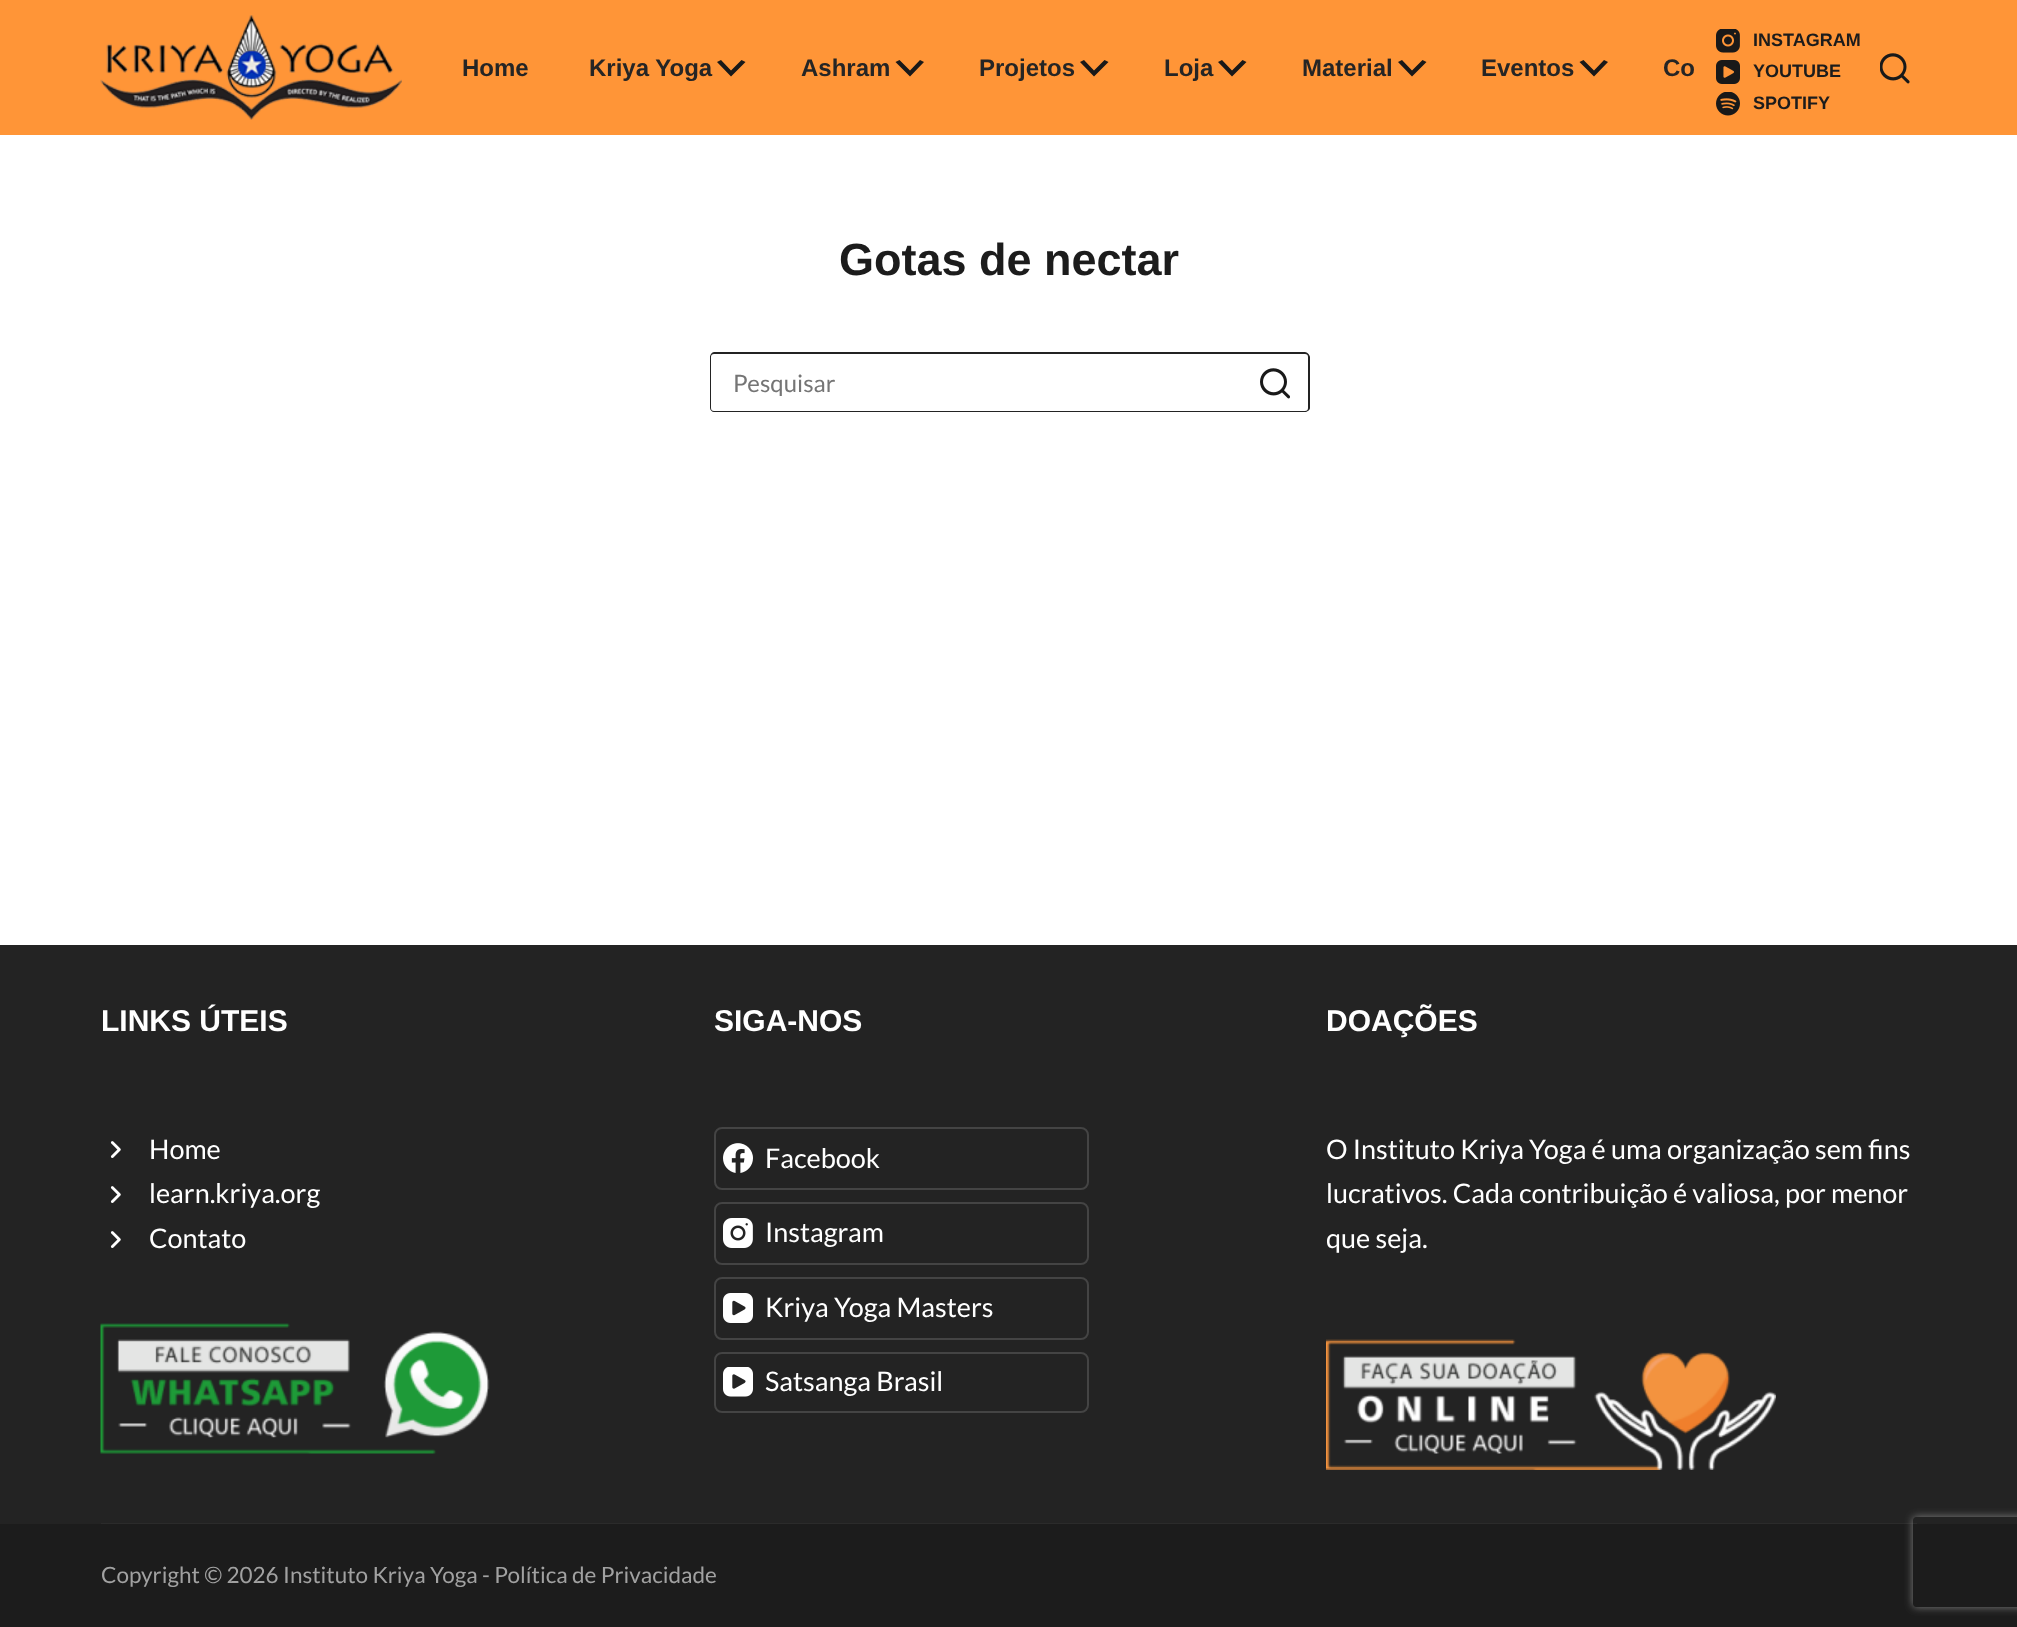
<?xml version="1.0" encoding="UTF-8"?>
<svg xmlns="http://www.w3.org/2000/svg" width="2017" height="1627">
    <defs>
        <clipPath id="clip1"><path d="M 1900 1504 H 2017 V 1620 H 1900 Z M 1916 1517 H 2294 C 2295.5 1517 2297 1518.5 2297 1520 V 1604 C 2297 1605.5 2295.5 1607 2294 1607 H 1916 C 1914.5 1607 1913 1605.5 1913 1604 V 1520 C 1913 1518.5 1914.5 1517 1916 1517 Z" clip-rule="evenodd"/></clipPath>
        <filter id="blur1" x="-50%" y="-200%" width="200%" height="500%"><feGaussianBlur stdDeviation="4"/></filter>
    </defs>
    <rect width="100%" height="100%" fill="#FFFFFF"/>
    <rect x="0" y="0" width="2017" height="135" fill="#FF9537"/>
    <image x="100" y="15" width="302" height="105" href="img_01.png"/>
    <text x="462" y="76" font-family="Liberation Sans" font-size="24" font-weight="700" fill="#252525">Home</text>
    <text x="589" y="76" font-family="Liberation Sans" font-size="24" font-weight="700" fill="#252525">Kriya Yoga</text>
    <path d="M 721 60 L 731 70.5 L 741.5 60 L 745.5 62 L 731 76.5 L 717 62 Z" fill="#191919"/>
    <text x="801" y="76" font-family="Liberation Sans" font-size="24" font-weight="700" fill="#252525">Ashram</text>
    <path d="M 899.5 60 L 910 70.5 L 920 60 L 924 62 L 910 76.5 L 895.5 62 Z" fill="#191919"/>
    <text x="979" y="76" font-family="Liberation Sans" font-size="24" font-weight="700" fill="#252525">Projetos</text>
    <path d="M 1084 60 L 1094 70.5 L 1104.5 60 L 1108.5 62 L 1094 76.5 L 1080 62 Z" fill="#191919"/>
    <text x="1164" y="76" font-family="Liberation Sans" font-size="24" font-weight="700" fill="#252525">Loja</text>
    <path d="M 1222 60 L 1232 70.5 L 1242.5 60 L 1246.5 62 L 1232 76.5 L 1218 62 Z" fill="#191919"/>
    <text x="1302" y="76" font-family="Liberation Sans" font-size="24" font-weight="700" fill="#252525">Material</text>
    <path d="M 1402 60 L 1412 70.5 L 1422.5 60 L 1426.5 62 L 1412 76.5 L 1398 62 Z" fill="#191919"/>
    <text x="1481" y="76" font-family="Liberation Sans" font-size="24" font-weight="700" fill="#252525">Eventos</text>
    <path d="M 1583.5 60 L 1594 70.5 L 1604 60 L 1608 62 L 1594 76.5 L 1579.5 62 Z" fill="#191919"/>
    <text x="1663" y="76" font-family="Liberation Sans" font-size="24" font-weight="700" fill="#252525">Co</text>
    <image x="1716" y="29" width="24" height="24" href="img_02.png"/>
    <text x="1753" y="46" font-family="Liberation Sans" font-size="18" font-weight="700" fill="#1C1C1C">INSTAGRAM</text>
    <image x="1716" y="60" width="24" height="24" href="img_03.png"/>
    <text x="1753" y="77" font-family="Liberation Sans" font-size="18" font-weight="700" fill="#1C1C1C">YOUTUBE</text>
    <image x="1716" y="92" width="24" height="24" href="img_04.png"/>
    <text x="1753" y="109" font-family="Liberation Sans" font-size="18" font-weight="700" fill="#1C1C1C">SPOTIFY</text>
    <image x="1880" y="53" width="30" height="31" href="img_05.png"/>
    <text x="839" y="275" font-family="Liberation Sans" font-size="45" font-weight="700" fill="#1C1C1C">Gotas de nectar</text>
    <path d="M 714 352 H 1250 V 412 H 714 C 712 412 710 410 710 408 V 357 C 710 355 712 352 714 352 Z M 714 354 H 1250 V 411 H 714 C 712 411 711 410 711 408 V 357 C 711 355 712 354 714 354 Z" fill="#232323" fill-rule="evenodd"/>
    <text x="733" y="392" font-family="Lato" font-size="24" fill="#757575">Pesquisar</text>
    <path d="M 1250 352 H 1305 C 1307 352 1310 355 1310 357 V 408 C 1310 410 1307 412 1305 412 H 1250 Z M 1250 354 H 1305 C 1307 354 1308 355 1308 357 V 408 C 1308 410 1307 411 1305 411 H 1250 Z" fill="#232323" fill-rule="evenodd"/>
    <image x="1260" y="368" width="30" height="31" href="img_06.png"/>
    <rect x="0" y="945" width="2017" height="579" fill="#232323"/>
    <rect x="101" y="1523" width="1816" height="1" fill="#2B2B2B"/>
    <text x="101" y="1031" font-family="Liberation Sans" font-size="30" font-weight="700" fill="#FFFFFF">LINKS ÚTEIS</text>
    <image x="110" y="1141" width="11" height="17" href="img_07.png"/>
    <text x="149" y="1159" font-family="Lato" font-size="27" fill="#FFFFFF">Home</text>
    <image x="110" y="1186" width="11" height="17" href="img_07.png"/>
    <text x="149" y="1203" font-family="Lato" font-size="27" fill="#FFFFFF">learn.kriya.org</text>
    <image x="110" y="1231" width="11" height="17" href="img_07.png"/>
    <text x="149" y="1248" font-family="Lato" font-size="27" fill="#FFFFFF">Contato</text>
    <image x="100" y="1323" width="390" height="131" href="img_08.png"/>
    <text x="714" y="1031" font-family="Liberation Sans" font-size="30" font-weight="700" fill="#FFFFFF">SIGA-NOS</text>
    <rect x="715" y="1128" width="373" height="61" rx="7" fill="none" stroke="#444444" stroke-width="2"/>
    <image x="723" y="1143" width="30" height="30" href="img_09.png"/>
    <text x="765" y="1168" font-family="Lato" font-size="27" fill="#FFFFFF">Facebook</text>
    <rect x="715" y="1203" width="373" height="61" rx="7" fill="none" stroke="#444444" stroke-width="2"/>
    <image x="723" y="1218" width="30" height="30" href="img_10.png"/>
    <text x="765" y="1242" font-family="Lato" font-size="27" fill="#FFFFFF">Instagram</text>
    <rect x="715" y="1278" width="373" height="61" rx="7" fill="none" stroke="#444444" stroke-width="2"/>
    <image x="723" y="1293" width="30" height="30" href="img_11.png"/>
    <text x="765" y="1317" font-family="Lato" font-size="27" fill="#FFFFFF">Kriya Yoga Masters</text>
    <rect x="715" y="1353" width="373" height="59" rx="7" fill="none" stroke="#444444" stroke-width="2"/>
    <image x="723" y="1367" width="30" height="30" href="img_12.png"/>
    <text x="765" y="1391" font-family="Lato" font-size="27" fill="#FFFFFF">Satsanga Brasil</text>
    <text x="1326" y="1031" font-family="Liberation Sans" font-size="30" font-weight="700" fill="#FFFFFF">DOAÇÕES</text>
    <text font-family="Lato" font-size="27" fill="#FFFFFF">
        <tspan x="1326" y="1159">O Instituto Kriya Yoga é uma organização sem fins</tspan>
        <tspan x="1326" y="1203">lucrativos. Cada contribuição é valiosa, por menor</tspan>
        <tspan x="1326" y="1248">que seja.</tspan>
    </text>
    <image x="1326" y="1339" width="450" height="131" href="img_13.png"/>
    <rect x="0" y="1524" width="2017" height="103" fill="#1C1C1C"/>
    <text x="101" y="1583" font-family="Lato" font-size="22.5" fill="#A1A1A1">Copyright © 2026 Instituto Kriya Yoga - Política de Privacidade</text>
    <g clip-path="url(#clip1)">
        <rect x="1913" y="1517" width="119" height="90" rx="3" fill="#808080" filter="url(#blur1)"/>
    </g>
</svg>
